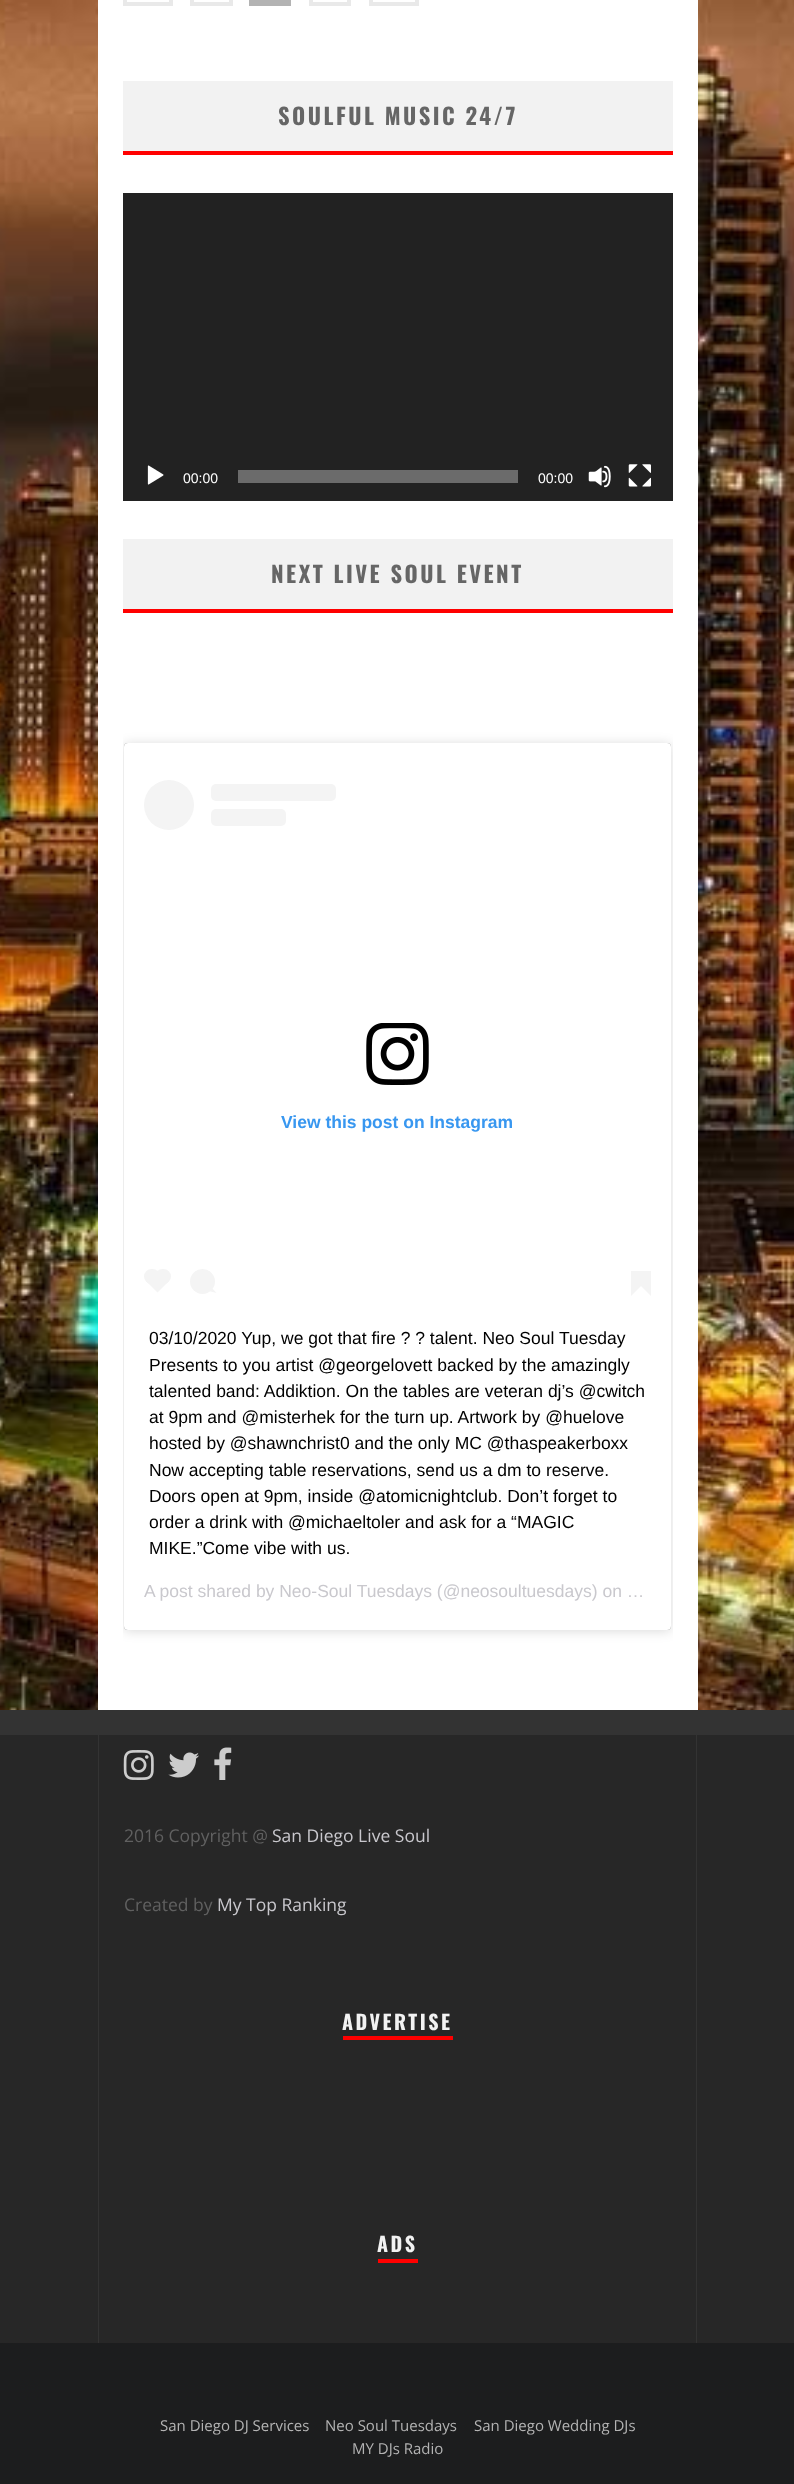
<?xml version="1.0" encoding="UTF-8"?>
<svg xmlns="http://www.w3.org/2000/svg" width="794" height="2484">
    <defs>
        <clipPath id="clip1"><rect x="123" y="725" width="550" height="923"/></clipPath>
        <filter id="blur1" x="-50%" y="-200%" width="200%" height="500%"><feGaussianBlur stdDeviation="6"/></filter>
        <filter id="blur2" x="-50%" y="-200%" width="200%" height="500%"><feGaussianBlur stdDeviation="0.5"/></filter>
    </defs>
    <rect width="100%" height="100%" fill="#FFFFFF"/>
    <image x="0" y="0" width="794" height="1710" href="img_01.png"/>
    <rect x="98" y="0" width="600" height="1710" fill="#FFFFFF"/>
    <rect x="125" y="-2" width="46" height="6" fill="none" stroke="#E9E9E9" stroke-width="4"/>
    <rect x="192" y="-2" width="39" height="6" fill="none" stroke="#E9E9E9" stroke-width="4"/>
    <rect x="249" y="0" width="42" height="6" fill="#B3B3B3"/>
    <rect x="311" y="-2" width="38" height="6" fill="none" stroke="#E9E9E9" stroke-width="4"/>
    <rect x="371" y="-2" width="46" height="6" fill="none" stroke="#E9E9E9" stroke-width="4"/>
    <rect x="123" y="81" width="550" height="70" fill="#F2F2F2"/>
    <rect x="123" y="151" width="550" height="4" fill="#FF0000"/>
    <text x="278" y="125" font-family="Oswald" font-size="22.5" font-weight="700" letter-spacing="2.5" fill="#666666">SOULFUL MUSIC 24/7</text>
    <rect x="123" y="193" width="550" height="308" fill="#222222"/>
    <image x="147" y="465" width="17" height="20" href="img_02.png"/>
    <text x="183" y="483" font-family="Liberation Sans" font-size="14" fill="#FFFFFF">00:00</text>
    <rect x="238" y="470" width="280" height="13" fill="#6B6B6B"/>
    <text x="538" y="483" font-family="Liberation Sans" font-size="14" fill="#FFFFFF">00:00</text>
    <image x="588" y="465" width="23" height="23" href="img_03.png"/>
    <image x="628" y="464" width="23" height="23" href="img_04.png"/>
    <rect x="123" y="539" width="550" height="70" fill="#F2F2F2"/>
    <rect x="123" y="609" width="550" height="4" fill="#FF0000"/>
    <text x="271" y="583" font-family="Oswald" font-size="22.5" font-weight="700" letter-spacing="2.5" fill="#666666">NEXT LIVE SOUL EVENT</text>
    <g clip-path="url(#clip1)">
        <rect x="124" y="744" width="547" height="887" rx="4" fill="#000000" fill-opacity="0.15" filter="url(#blur1)"/>
    </g>
    <rect x="124" y="743" width="547" height="887" rx="4" fill="#000000" fill-opacity="0.5" filter="url(#blur2)"/>
    <rect x="124" y="743" width="547" height="887" rx="4" fill="#FFFFFF"/>
    <circle cx="169" cy="805" r="25" fill="#F4F4F4"/>
    <rect x="211" y="784" width="125" height="17" rx="5" fill="#F4F4F4"/>
    <rect x="211" y="809" width="75" height="17" rx="5" fill="#F4F4F4"/>
    <image x="366" y="1023" width="63" height="62" href="img_05.png"/>
    <text x="281" y="1128" font-family="Liberation Sans" font-size="17.5" font-weight="700" fill="#3897F0">View this post on Instagram</text>
    <rect x="144" y="1269" width="16" height="15" rx="7.5" fill="#F4F4F4"/>
    <path d="M 146.5 1281.5 L 157.5 1270.5 L 168.5 1281.5 L 157.5 1292.5 Z" fill="#F4F4F4"/>
    <rect x="155" y="1269" width="16" height="15" rx="7.5" fill="#F4F4F4"/>
    <circle cx="202.5" cy="1281.5" r="12.5" fill="#F4F4F4"/>
    <path d="M 208.5 1291 L 211 1287 L 216.5 1293 Z" fill="#F4F4F4"/>
    <rect x="631" y="1271" width="20" height="15" fill="#F4F4F4"/>
    <path d="M 631 1286 H 641 L 631 1296 Z" fill="#F4F4F4"/>
    <path d="M 641 1286 H 651 V 1296 Z" fill="#F4F4F4"/>
    <text font-family="Liberation Sans" font-size="17.5" fill="#000000">
        <tspan x="149" y="1344">03/10/2020 Yup, we got that fire ? ? talent. Neo Soul Tuesday</tspan>
        <tspan x="149" y="1371">Presents to you artist @georgelovett backed by the amazingly</tspan>
        <tspan x="149" y="1397">talented band: Addiktion. On the tables are veteran dj’s @cwitch</tspan>
        <tspan x="149" y="1423">at 9pm and @misterhek for the turn up. Artwork by @huelove</tspan>
        <tspan x="149" y="1449">hosted by @shawnchrist0 and the only MC @thaspeakerboxx</tspan>
        <tspan x="149" y="1476">Now accepting table reservations, send us a dm to reserve.</tspan>
        <tspan x="149" y="1502">Doors open at 9pm, inside @atomicnightclub. Don’t forget to</tspan>
        <tspan x="149" y="1528">order a drink with @michaeltoler and ask for a “MAGIC</tspan>
        <tspan x="149" y="1554">MIKE.”Come vibe with us.</tspan>
    </text>
    <text x="144" y="1597" font-family="Liberation Sans" font-size="17.5" fill="#C9C8CD">A post shared by Neo-Soul Tuesdays (@neosoultuesdays) on …</text>
    <rect x="0" y="1735" width="794" height="608" fill="#272727"/>
    <rect x="0" y="1710" width="794" height="25" fill="#333333"/>
    <rect x="696" y="1735" width="1" height="608" fill="#333333"/>
    <rect x="98" y="1735" width="1" height="608" fill="#333333"/>
    <image x="123" y="1750" width="31" height="30" href="img_06.png"/>
    <image x="168" y="1752" width="31" height="26" href="img_07.png"/>
    <image x="214" y="1747" width="18" height="33" href="img_08.png"/>
    <text x="124" y="1842" font-family="Open Sans" font-size="17.5" fill="#606060">2016 Copyright @</text>
    <text x="272" y="1842" font-family="Open Sans" font-size="17.5" fill="#C9C8CD">San Diego Live Soul</text>
    <text x="124" y="1911" font-family="Open Sans" font-size="17.5" fill="#606060">Created by</text>
    <text x="217" y="1911" font-family="Open Sans" font-size="17.5" fill="#C9C8CD">My Top Ranking</text>
    <text x="342" y="2030" font-family="Oswald" font-size="20" font-weight="700" letter-spacing="2.5" fill="#F2F2F2">ADVERTISE</text>
    <rect x="343" y="2036" width="110" height="4" fill="#FF0000"/>
    <text x="377" y="2252" font-family="Oswald" font-size="20" font-weight="700" letter-spacing="2.5" fill="#F2F2F2">ADS</text>
    <rect x="378" y="2259" width="40" height="4" fill="#FF0000"/>
    <rect x="0" y="2343" width="794" height="141" fill="#1C1D1E"/>
    <text x="160" y="2431" font-family="Open Sans" font-size="15" fill="#B3B3B3">San Diego DJ Services</text>
    <text x="325" y="2431" font-family="Open Sans" font-size="15" fill="#B3B3B3">Neo Soul Tuesdays</text>
    <text x="474" y="2431" font-family="Open Sans" font-size="15" fill="#B3B3B3">San Diego Wedding DJs</text>
    <text x="352" y="2454" font-family="Open Sans" font-size="15" fill="#B3B3B3">MY DJs Radio</text>
</svg>
